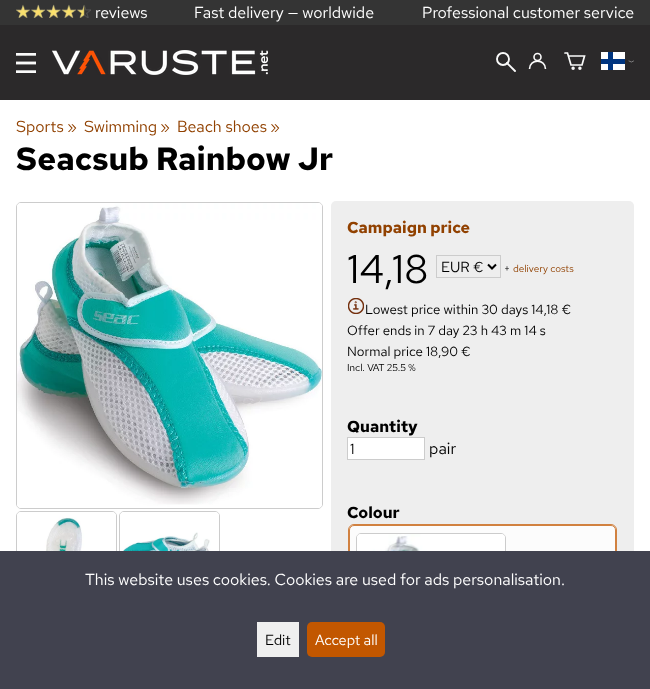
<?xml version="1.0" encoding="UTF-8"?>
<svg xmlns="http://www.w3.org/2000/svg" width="650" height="689">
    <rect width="100%" height="100%" fill="#FFFFFF"/>
    <rect x="0" y="0" width="650" height="25" fill="#343434"/>
    <image x="16" y="4" width="75" height="14" href="img_01.png"/>
    <text x="95" y="18" font-family="Red Hat Text" font-size="16" fill="#FFFFFF">reviews</text>
    <text x="194" y="18" font-family="Red Hat Text" font-size="16" fill="#FFFFFF">Fast delivery — worldwide</text>
    <text x="422" y="18" font-family="Red Hat Text" font-size="16" fill="#FFFFFF">Professional customer service</text>
    <rect x="0" y="25" width="650" height="75" fill="#2B292A"/>
    <image x="16" y="53" width="20" height="20" href="img_02.png"/>
    <image x="52" y="50" width="216" height="25" href="img_03.png"/>
    <path d="M 515 71 L 507 63" fill="none" stroke="#FAFAFA" stroke-width="1.9" stroke-linecap="round"/>
    <circle cx="503" cy="59" r="6" fill="none" stroke="#FAFAFA" stroke-width="1.9"/>
    <circle cx="537.5" cy="57" r="3.5" fill="none" stroke="#FAFAFA" stroke-width="1.6"/>
    <path d="M 529.5 69 C 529.5 58.5 545.5 58.5 545.5 69" fill="none" stroke="#FAFAFA" stroke-width="1.6"/>
    <path d="M 568.5 56 H 584.5 L 582 65 H 571 L 567.5 53 H 565" fill="none" stroke="#FAFAFA" stroke-width="1.7" stroke-linecap="round"/>
    <circle cx="573.1" cy="68.3" r="0.9" fill="none" stroke="#FAFAFA" stroke-width="1.7"/>
    <circle cx="579.9" cy="68.3" r="0.9" fill="none" stroke="#FAFAFA" stroke-width="1.7"/>
    <rect x="601" y="52" width="24" height="18" fill="#FFFFFF"/>
    <rect x="601" y="59" width="24" height="5" fill="#003580"/>
    <rect x="608" y="52" width="5" height="18" fill="#003580"/>
    <path d="M 629 61 L 631.5 62 L 633.5 61" fill="none" stroke="#FAFAFA" stroke-width="0.4" stroke-linecap="round"/>
    <text x="16" y="132" font-family="Red Hat Text" font-size="16" fill="#914100">Sports</text>
    <text x="67" y="132" font-family="Red Hat Text" font-size="16" fill="#914100">»</text>
    <text x="84" y="132" font-family="Red Hat Text" font-size="16" fill="#914100">Swimming</text>
    <text x="160" y="132" font-family="Red Hat Text" font-size="16" fill="#914100">»</text>
    <text x="177" y="132" font-family="Red Hat Text" font-size="16" fill="#914100">Beach shoes</text>
    <text x="270" y="132" font-family="Red Hat Text" font-size="16" fill="#914100">»</text>
    <text x="16" y="170" font-family="Red Hat Text" font-size="32" font-weight="700" fill="#000000">Seacsub Rainbow Jr</text>
    <rect x="16.5" y="202.5" width="306" height="306" rx="4.5" fill="none" stroke="#CCCCCC"/>
    <image x="17" y="203" width="305" height="305" href="img_04.png"/>
    <rect x="16.5" y="511.5" width="100" height="100" rx="4.5" fill="none" stroke="#CCCCCC"/>
    <image x="17" y="512" width="99" height="39" href="img_05.png"/>
    <rect x="119.5" y="511.5" width="100" height="100" rx="4.5" fill="none" stroke="#CCCCCC"/>
    <image x="120" y="512" width="99" height="39" href="img_06.png"/>
    <rect x="331" y="201" width="303" height="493" rx="5" fill="#EEEEEE"/>
    <text x="347" y="233" font-family="Red Hat Text" font-size="16" font-weight="700" fill="#914100">Campaign price</text>
    <text x="347" y="283" font-family="Red Hat Text" font-size="40" fill="#000000">14,18</text>
    <rect x="436.5" y="255.5" width="64" height="22" fill="none" stroke="#CCCCCC"/>
    <path d="M 488 264.5 L 492 268.5 L 496 264.5" fill="none" stroke="#000000" stroke-width="2"/>
    <text x="441" y="272" font-family="Red Hat Text" font-size="14.5" fill="#000000">EUR €</text>
    <text x="504" y="272" font-family="Red Hat Text" font-size="10" fill="#000000">+</text>
    <text x="513" y="272" font-family="Red Hat Text" font-size="10" fill="#914100">delivery costs</text>
    <image x="348" y="298" width="16" height="16" href="img_07.png"/>
    <text x="365" y="314" font-family="Red Hat Text" font-size="13.3" fill="#000000">Lowest price within 30 days 14,18 €</text>
    <text font-family="Red Hat Text" font-size="13.3" fill="#000000">
        <tspan x="347" y="335">Offer ends in 7 day 23 h 43 m 14 s</tspan>
        <tspan x="347" y="356">Normal price 18,90 €</tspan>
    </text>
    <text x="347" y="371" font-family="Red Hat Text" font-size="10" fill="#000000">Incl. VAT 25.5 %</text>
    <text x="347" y="432" font-family="Red Hat Text" font-size="16" font-weight="700" fill="#000000">Quantity</text>
    <rect x="347.5" y="437.5" width="77" height="22" fill="#FFFFFF" stroke="#CCCCCC"/>
    <text x="350" y="454" font-family="Red Hat Text" font-size="14.5" fill="#000000">1</text>
    <text x="429" y="454" font-family="Red Hat Text" font-size="16" fill="#000000">pair</text>
    <text x="347" y="518" font-family="Red Hat Text" font-size="16" font-weight="700" fill="#000000">Colour</text>
    <rect x="349.5" y="525.5" width="266" height="163" rx="4.5" fill="#FCFCFC" stroke="#D18140"/>
    <path d="M 361 533 H 501 C 503 533 504 535 504 537 V 677 C 504 679 503 681 501 681 H 361 C 358 681 356 679 356 677 V 537 C 356 535 358 533 361 533 Z" fill="#FFFFFF"/>
    <rect x="356.5" y="533.5" width="149" height="149" rx="4.5" fill="none" stroke="#CCCCCC"/>
    <image x="357" y="534" width="148" height="17" href="img_08.png"/>
    <rect x="348.5" y="524.5" width="268" height="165" rx="5.5" fill="none" stroke="#D18140"/>
    <rect x="0" y="551" width="650" height="138" fill="#41424F"/>
    <text x="85" y="585" font-family="Red Hat Text" font-size="16" fill="#FFFFFF">This website uses cookies. Cookies are used for ads personalisation.</text>
    <rect x="257" y="622" width="42" height="35" fill="#EFEFEF"/>
    <text x="265" y="645" font-family="Red Hat Text" font-size="14.5" fill="#000000">Edit</text>
    <rect x="307" y="622" width="78" height="35" rx="5" fill="#C25700"/>
    <text x="315" y="645" font-family="Red Hat Text" font-size="14.5" fill="#FFFFFF">Accept all</text>
</svg>
